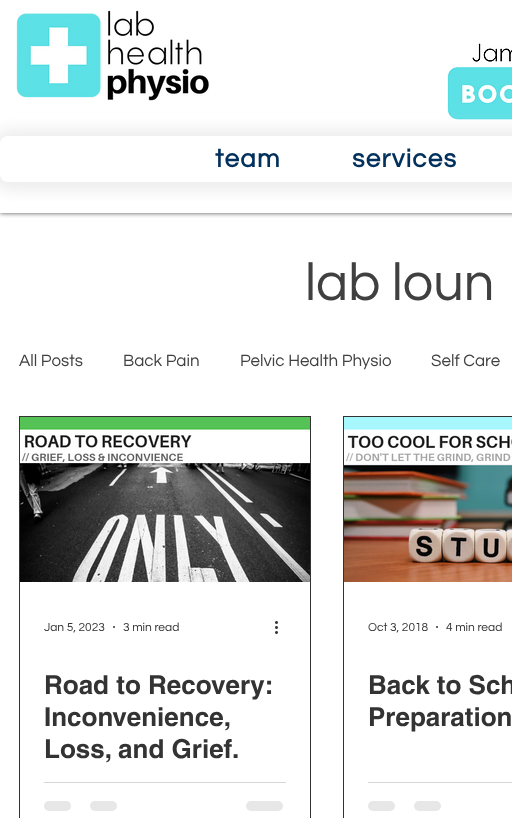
<?xml version="1.0" encoding="UTF-8"?>
<svg xmlns="http://www.w3.org/2000/svg" width="512" height="818">
    <defs>
        <clipPath id="clip1"><rect x="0" y="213" width="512" height="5"/></clipPath>
        <filter id="blur1" x="-50%" y="-200%" width="200%" height="500%"><feGaussianBlur stdDeviation="2.5"/></filter>
        <filter id="blur2" x="-50%" y="-200%" width="200%" height="500%"><feGaussianBlur stdDeviation="7.5"/></filter>
    </defs>
    <rect width="100%" height="100%" fill="#FFFFFF"/>
    <g clip-path="url(#clip1)">
        <rect x="0" y="0" width="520" height="213" fill="#000000" fill-opacity="0.7" filter="url(#blur1)"/>
    </g>
    <image x="16" y="10" width="193" height="91" href="img_01.png"/>
    <image x="447" y="43" width="65" height="77" href="img_02.png"/>
    <rect x="-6" y="130" width="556" height="60" rx="15" fill="#EDEBEB" filter="url(#blur2)"/>
    <rect x="0" y="136" width="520" height="46" rx="8" fill="#FFFFFF"/>
    <text x="215" y="167" font-family="Questrial" font-size="26" font-weight="700" letter-spacing="1.25" fill="#00305B">team</text>
    <text x="352" y="167" font-family="Questrial" font-size="26" font-weight="700" letter-spacing="1.25" fill="#00305B">services</text>
    <text x="305" y="300" font-family="Questrial" font-size="54" fill="#404040">lab loun</text>
    <text x="19" y="366" font-family="Questrial" font-size="17" fill="#404040">All Posts</text>
    <text x="123" y="366" font-family="Questrial" font-size="17" fill="#404040">Back Pain</text>
    <text x="240" y="366" font-family="Questrial" font-size="17" fill="#404040">Pelvic Health Physio</text>
    <text x="431" y="366" font-family="Questrial" font-size="17" fill="#404040">Self Care</text>
    <rect x="19.5" y="416.5" width="291" height="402" fill="none" stroke="#333333"/>
    <image x="20" y="417" width="290" height="165" href="img_03.png"/>
    <text x="44" y="631" font-family="Questrial" font-size="12" fill="#333333">Jan 5, 2023</text>
    <circle cx="114" cy="627" r="1" fill="#333333"/>
    <text x="123" y="631" font-family="Questrial" font-size="12" fill="#333333">3 min read</text>
    <image x="275" y="621" width="3" height="13" href="img_04.png"/>
    <text font-family="helvetica" font-size="26" font-weight="700" fill="#333333">
        <tspan x="44" y="694">Road to Recovery:</tspan>
        <tspan x="44" y="726">Inconvenience,</tspan>
        <tspan x="44" y="758">Loss, and Grief.</tspan>
    </text>
    <rect x="44" y="782" width="242" height="1" fill="#D6D6D6"/>
    <rect x="44" y="801" width="27" height="10" rx="5" fill="#E7E7E7"/>
    <rect x="90" y="801" width="27" height="10" rx="5" fill="#E7E7E7"/>
    <rect x="246" y="801" width="37" height="10" rx="5" fill="#E7E7E7"/>
    <rect x="343.5" y="416.5" width="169" height="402" fill="none" stroke="#333333"/>
    <image x="344" y="417" width="168" height="165" href="img_05.png"/>
    <text x="368" y="631" font-family="Questrial" font-size="12" fill="#333333">Oct 3, 2018</text>
    <circle cx="437" cy="627" r="1" fill="#333333"/>
    <text x="446" y="631" font-family="Questrial" font-size="12" fill="#333333">4 min read</text>
    <text font-family="helvetica" font-size="26" font-weight="700" fill="#333333">
        <tspan x="368" y="694">Back to Sch</tspan>
        <tspan x="368" y="726">Preparation</tspan>
    </text>
    <rect x="368" y="782" width="144" height="1" fill="#D6D6D6"/>
    <rect x="368" y="801" width="27" height="10" rx="5" fill="#E7E7E7"/>
    <rect x="414" y="801" width="27" height="10" rx="5" fill="#E7E7E7"/>
</svg>
